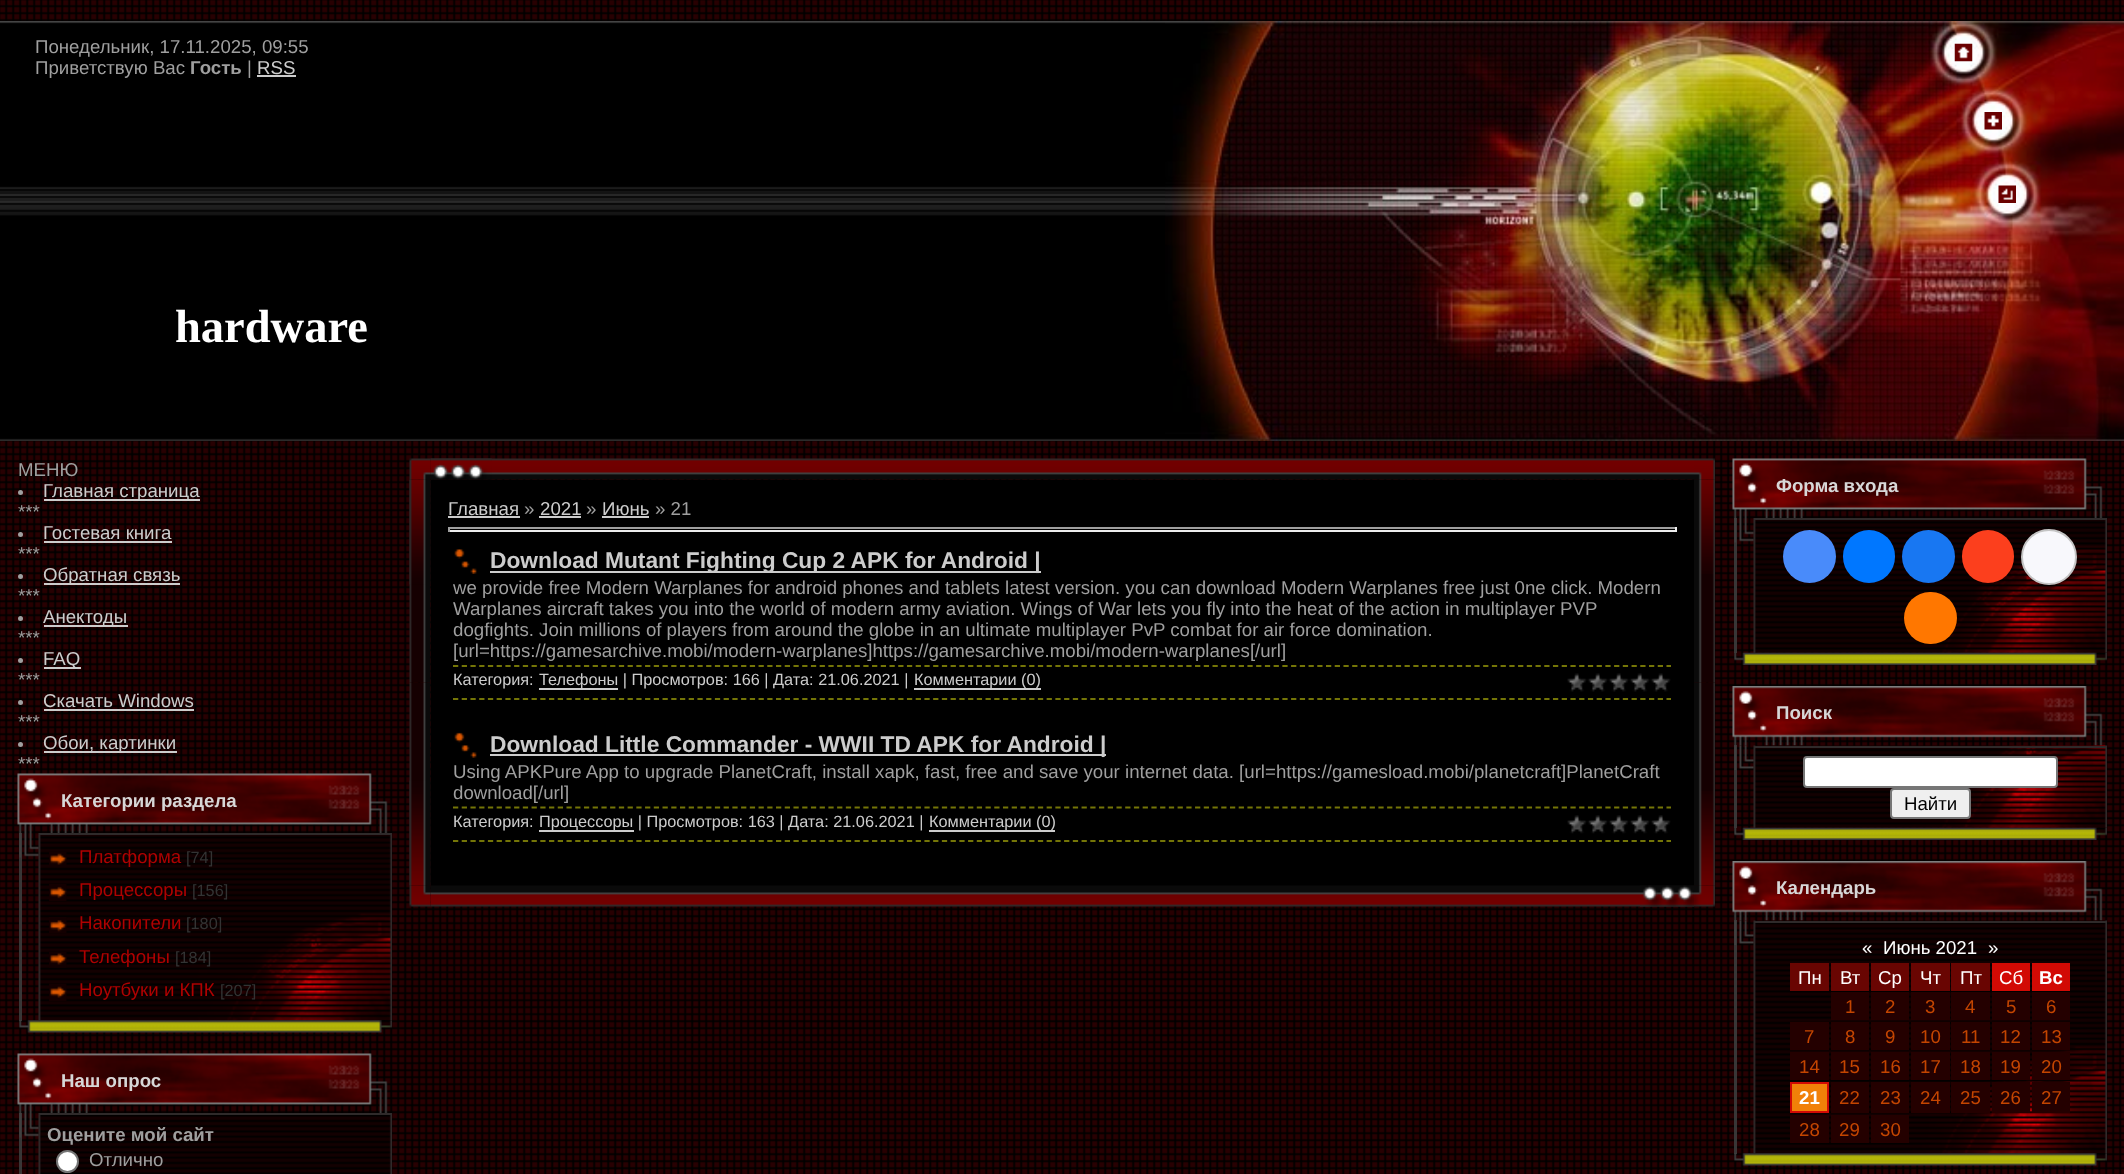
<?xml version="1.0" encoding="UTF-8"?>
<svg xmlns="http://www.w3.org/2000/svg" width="2124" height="1174">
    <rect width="100%" height="100%" fill="#FFFFFF"/>
    <image x="0" y="0" width="2124" height="1174" href="img_01.png"/>
    <image x="0" y="21" width="1165" height="420" href="img_02.png"/>
    <text font-family="Liberation Sans" font-size="18.67" fill="#9F9F9F">
        <tspan x="35" y="53">Понедельник, 17.11.2025, 09:55</tspan>
        <tspan x="35" y="74">Приветствую Вас</tspan>
    </text>
    <text x="190" y="74" font-family="Liberation Sans" font-size="18.67" font-weight="700" fill="#9F9F9F">Гость</text>
    <text x="247" y="74" font-family="Liberation Sans" font-size="18.67" fill="#9F9F9F">|</text>
    <text x="257" y="74" font-family="Liberation Sans" font-size="18.67" fill="#CCCCCC">RSS</text>
    <rect x="257" y="75" width="39" height="2" fill="#CCCCCC"/>
    <text x="175" y="342" font-family="Liberation Serif" font-size="46.5" font-weight="700" fill="#FFFFFF">hardware</text>
    <image x="1165" y="21" width="959" height="420" href="img_03.png"/>
    <image x="1954" y="43" width="19" height="19" href="img_04.png"/>
    <image x="1984" y="112" width="18" height="18" href="img_05.png"/>
    <image x="1998" y="185" width="18" height="18" href="img_06.png"/>
    <text x="18" y="476" font-family="Liberation Sans" font-size="18.67" fill="#9F9F9F">МЕНЮ</text>
    <circle cx="20.5" cy="492.5" r="2.5" fill="#9F9F9F"/>
    <rect x="44" y="499" width="156" height="2" fill="#CCCCCC"/>
    <text x="43" y="497" font-family="Liberation Sans" font-size="18.67" fill="#CCCCCC">Главная страница</text>
    <text x="18" y="518" font-family="Liberation Sans" font-size="18.67" fill="#9F9F9F">***</text>
    <circle cx="20.5" cy="534.5" r="2.5" fill="#9F9F9F"/>
    <text x="43" y="539" font-family="Liberation Sans" font-size="18.67" fill="#CCCCCC">Гостевая книга</text>
    <rect x="44" y="541" width="128" height="2" fill="#CCCCCC"/>
    <text x="18" y="560" font-family="Liberation Sans" font-size="18.67" fill="#9F9F9F">***</text>
    <circle cx="20.5" cy="576.5" r="2.5" fill="#9F9F9F"/>
    <rect x="44" y="583" width="136" height="2" fill="#CCCCCC"/>
    <text x="43" y="581" font-family="Liberation Sans" font-size="18.67" fill="#CCCCCC">Обратная связь</text>
    <text x="18" y="602" font-family="Liberation Sans" font-size="18.67" fill="#9F9F9F">***</text>
    <circle cx="20.5" cy="618.5" r="2.5" fill="#9F9F9F"/>
    <rect x="44" y="625" width="84" height="2" fill="#CCCCCC"/>
    <text x="43" y="623" font-family="Liberation Sans" font-size="18.67" fill="#CCCCCC">Анектоды</text>
    <text x="18" y="644" font-family="Liberation Sans" font-size="18.67" fill="#9F9F9F">***</text>
    <circle cx="20.5" cy="660.5" r="2.5" fill="#9F9F9F"/>
    <rect x="44" y="667" width="37" height="2" fill="#CCCCCC"/>
    <text x="43" y="665" font-family="Liberation Sans" font-size="18.67" fill="#CCCCCC">FAQ</text>
    <text x="18" y="686" font-family="Liberation Sans" font-size="18.67" fill="#9F9F9F">***</text>
    <circle cx="20.5" cy="702.5" r="2.5" fill="#9F9F9F"/>
    <text x="43" y="707" font-family="Liberation Sans" font-size="18.67" fill="#CCCCCC">Скачать Windows</text>
    <rect x="44" y="709" width="150" height="2" fill="#CCCCCC"/>
    <text x="18" y="728" font-family="Liberation Sans" font-size="18.67" fill="#9F9F9F">***</text>
    <circle cx="20.5" cy="744.5" r="2.5" fill="#9F9F9F"/>
    <rect x="44" y="751" width="133" height="2" fill="#CCCCCC"/>
    <text x="43" y="749" font-family="Liberation Sans" font-size="18.67" fill="#CCCCCC">Обои, картинки</text>
    <text x="18" y="770" font-family="Liberation Sans" font-size="18.67" fill="#9F9F9F">***</text>
    <image x="17" y="773" width="371" height="60" href="img_07.png"/>
    <text x="61" y="807" font-family="Liberation Sans" font-size="18.67" font-weight="700" fill="#D7D7D7">Категории раздела</text>
    <rect x="19" y="833" width="3" height="188" fill="#434343" fill-opacity="0.81"/>
    <image x="38" y="833" width="354" height="188" href="img_09.png"/>
    <image x="19" y="833" width="20" height="25" href="img_08.png"/>
    <rect x="39" y="833" width="353" height="2" fill="#2F2A2A"/>
    <image x="49" y="852" width="18" height="13" href="img_10.png"/>
    <text x="79" y="863" font-family="Liberation Sans" font-size="18.67" fill="#AF0101">Платформа</text>
    <text x="186" y="863" font-family="Liberation Sans" font-size="16.3" fill="#333333">[74]</text>
    <image x="49" y="884" width="18" height="17" href="img_11.png"/>
    <text x="79" y="896" font-family="Liberation Sans" font-size="18.67" fill="#AF0101">Процессоры</text>
    <text x="192" y="896" font-family="Liberation Sans" font-size="16.3" fill="#333333">[156]</text>
    <image x="49" y="917" width="18" height="16" href="img_12.png"/>
    <text x="79" y="929" font-family="Liberation Sans" font-size="18.67" fill="#AF0101">Накопители</text>
    <text x="186" y="929" font-family="Liberation Sans" font-size="16.3" fill="#333333">[180]</text>
    <image x="49" y="952" width="18" height="16" href="img_13.png"/>
    <text x="79" y="963" font-family="Liberation Sans" font-size="18.67" fill="#AF0101">Телефоны</text>
    <text x="175" y="963" font-family="Liberation Sans" font-size="16.3" fill="#333333">[184]</text>
    <image x="49" y="983" width="18" height="18" href="img_14.png"/>
    <text x="79" y="996" font-family="Liberation Sans" font-size="18.67" fill="#AF0101">Ноутбуки и КПК</text>
    <text x="220" y="996" font-family="Liberation Sans" font-size="16.3" fill="#333333">[207]</text>
    <image x="19" y="1020" width="373" height="13" href="img_15.png"/>
    <image x="17" y="1053" width="371" height="60" href="img_07.png"/>
    <text x="61" y="1087" font-family="Liberation Sans" font-size="18.67" font-weight="700" fill="#D7D7D7">Наш опрос</text>
    <rect x="19" y="1113" width="3" height="61" fill="#434343" fill-opacity="0.81"/>
    <image x="38" y="1113" width="354" height="61" href="img_16.png"/>
    <image x="19" y="1113" width="20" height="25" href="img_08.png"/>
    <rect x="39" y="1113" width="353" height="2" fill="#2F2A2A"/>
    <text x="47" y="1141" font-family="Liberation Sans" font-size="18.67" font-weight="700" fill="#9F9F9F">Оцените мой сайт</text>
    <circle cx="67.5" cy="1161.5" r="10.5" fill="#FFFFFF" stroke="#767676" stroke-width="2"/>
    <text x="89" y="1166" font-family="Liberation Sans" font-size="18.67" fill="#9F9F9F">Отлично</text>
    <image x="430" y="458" width="1264" height="22" href="img_18.png"/>
    <image x="409" y="479" width="22" height="204" href="img_21.png"/>
    <image x="409" y="458" width="22" height="22" href="img_17.png"/>
    <image x="430" y="458" width="62" height="22" href="img_19.png"/>
    <image x="1694" y="479" width="21" height="204" href="img_27.png"/>
    <image x="1694" y="458" width="21" height="22" href="img_20.png"/>
    <image x="409" y="479" width="22" height="106" href="img_22.png"/>
    <rect x="431" y="480" width="1263" height="406" fill="#000000"/>
    <text x="448" y="515" font-family="Liberation Sans" font-size="18.67" fill="#CCCCCC">Главная</text>
    <rect x="448" y="516" width="72" height="2" fill="#CCCCCC"/>
    <text x="524" y="515" font-family="Liberation Sans" font-size="18.67" fill="#9F9F9F">»</text>
    <text x="540" y="515" font-family="Liberation Sans" font-size="18.67" fill="#CCCCCC">2021</text>
    <rect x="539" y="516" width="42" height="2" fill="#CCCCCC"/>
    <text x="586" y="515" font-family="Liberation Sans" font-size="18.67" fill="#9F9F9F">»</text>
    <text x="602" y="515" font-family="Liberation Sans" font-size="18.67" fill="#CCCCCC">Июнь</text>
    <rect x="602" y="516" width="47" height="2" fill="#CCCCCC"/>
    <text x="655" y="515" font-family="Liberation Sans" font-size="18.67" fill="#9F9F9F">» 21</text>
    <rect x="448" y="527" width="1229" height="2" fill="#9F9F9F"/>
    <rect x="1675" y="527" width="2" height="5" fill="#EEEEEE"/>
    <rect x="448" y="530" width="1229" height="2" fill="#EEEEEE"/>
    <rect x="448" y="527" width="2" height="5" fill="#9F9F9F"/>
    <image x="454" y="549" width="23" height="25" href="img_23.png"/>
    <rect x="490" y="571" width="551" height="2" fill="#CCCCCC"/>
    <text x="490" y="568" font-family="Liberation Sans" font-size="22.75" font-weight="700" fill="#CCCCCC">Download Mutant Fighting Cup 2 APK for Android |</text>
    <text font-family="Liberation Sans" font-size="18.67" fill="#9F9F9F">
        <tspan x="453" y="594">we provide free Modern Warplanes for android phones and tablets latest version. you can download Modern Warplanes free just 0ne click. Modern</tspan>
        <tspan x="453" y="615">Warplanes aircraft takes you into the world of modern army aviation. Wings of War lets you fly into the heat of the action in multiplayer PVP</tspan>
        <tspan x="453" y="636">dogfights. Join millions of players from around the globe in an ultimate multiplayer PvP combat for air force domination.</tspan>
        <tspan x="453" y="657">[url=https://gamesarchive.mobi/modern-warplanes]https://gamesarchive.mobi/modern-warplanes[/url]</tspan>
    </text>
    <path d="M 453 666 H 1671" fill="none" stroke="#747507" stroke-width="1.8" stroke-dasharray="5.25 3.48"/>
    <path d="M 453 699 H 1671" fill="none" stroke="#747507" stroke-width="1.8" stroke-dasharray="5.25 3.48"/>
    <text x="453" y="685" font-family="Liberation Sans" font-size="16.3" fill="#CCCCCC">Категория:</text>
    <rect x="539" y="688" width="79" height="2" fill="#CCCCCC"/>
    <text x="539" y="685" font-family="Liberation Sans" font-size="16.3" fill="#CCCCCC">Телефоны | Просмотров: 166 | Дата: 21.06.2021 |</text>
    <rect x="914" y="688" width="127" height="2" fill="#CCCCCC"/>
    <text x="914" y="685" font-family="Liberation Sans" font-size="16.3" fill="#CCCCCC">Комментарии (0)</text>
    <image x="1567" y="673" width="104" height="19" href="img_24.png"/>
    <image x="454" y="732" width="23" height="26" href="img_25.png"/>
    <rect x="490" y="754" width="616" height="2" fill="#CCCCCC"/>
    <text x="490" y="752" font-family="Liberation Sans" font-size="22.75" font-weight="700" fill="#CCCCCC">Download Little Commander - WWII TD APK for Android |</text>
    <text font-family="Liberation Sans" font-size="18.67" fill="#9F9F9F">
        <tspan x="453" y="778">Using APKPure App to upgrade PlanetCraft, install xapk, fast, free and save your internet data. [url=https://gamesload.mobi/planetcraft]PlanetCraft</tspan>
        <tspan x="453" y="799">download[/url]</tspan>
    </text>
    <path d="M 453 807.5 H 1671" fill="none" stroke="#747507" stroke-width="1.8" stroke-dasharray="5.25 3.48"/>
    <path d="M 453 841 H 1671" fill="none" stroke="#747507" stroke-width="1.8" stroke-dasharray="5.25 3.48"/>
    <text x="453" y="827" font-family="Liberation Sans" font-size="16.3" fill="#CCCCCC">Категория:</text>
    <rect x="539" y="830" width="95" height="2" fill="#CCCCCC"/>
    <text x="539" y="827" font-family="Liberation Sans" font-size="16.3" fill="#CCCCCC">Процессоры | Просмотров: 163 | Дата: 21.06.2021 |</text>
    <rect x="929" y="830" width="126" height="2" fill="#CCCCCC"/>
    <text x="929" y="827" font-family="Liberation Sans" font-size="16.3" fill="#CCCCCC">Комментарии (0)</text>
    <image x="1567" y="815" width="104" height="19" href="img_26.png"/>
    <image x="1699" y="479" width="16" height="95" href="img_28.png"/>
    <image x="409" y="682" width="22" height="204" href="img_29.png"/>
    <image x="430" y="885" width="1264" height="22" href="img_34.png"/>
    <image x="409" y="780" width="22" height="106" href="img_30.png"/>
    <image x="1694" y="682" width="21" height="204" href="img_31.png"/>
    <image x="1694" y="791" width="21" height="95" href="img_32.png"/>
    <image x="409" y="885" width="22" height="22" href="img_33.png"/>
    <image x="1640" y="885" width="54" height="22" href="img_35.png"/>
    <image x="1694" y="885" width="21" height="22" href="img_36.png"/>
    <image x="1732" y="458" width="371" height="60" href="img_07.png"/>
    <text x="1776" y="492" font-family="Liberation Sans" font-size="18.67" font-weight="700" fill="#D7D7D7">Форма входа</text>
    <rect x="1734" y="518" width="3" height="135" fill="#434343" fill-opacity="0.81"/>
    <image x="1753" y="518" width="354" height="135" href="img_37.png"/>
    <image x="1734" y="518" width="20" height="25" href="img_08.png"/>
    <rect x="1754" y="518" width="353" height="2" fill="#2F2A2A"/>
    <circle cx="1809.5" cy="556.5" r="26.5" fill="#498BFA"/>
    <rect x="1843" y="530" width="52" height="53" rx="26" fill="#0077FF"/>
    <circle cx="1928.5" cy="556.5" r="26.5" fill="#1877F2"/>
    <rect x="1962" y="530" width="52" height="53" rx="26" fill="#FC3F1D"/>
    <circle cx="2049" cy="557" r="27" fill="#F8F8FC" stroke="#C4C4C4" stroke-width="2"/>
    <rect x="1904" y="592" width="53" height="52" rx="26" fill="#FF7700"/>
    <image x="1734" y="652" width="373" height="13" href="img_38.png"/>
    <image x="1732" y="686" width="371" height="60" href="img_39.png"/>
    <text x="1776" y="719" font-family="Liberation Sans" font-size="18.67" font-weight="700" fill="#D7D7D7">Поиск</text>
    <rect x="1734" y="745" width="3" height="83" fill="#434343" fill-opacity="0.81"/>
    <image x="1753" y="745" width="354" height="83" href="img_41.png"/>
    <image x="1734" y="745" width="20" height="25" href="img_40.png"/>
    <rect x="1754" y="746" width="353" height="2" fill="#2F2A2A"/>
    <rect x="1804" y="757" width="253" height="30" rx="3" fill="#FFFFFF" stroke="#767676" stroke-width="2"/>
    <rect x="1891" y="789" width="79" height="29" rx="3" fill="#EFEFEF" stroke="#767676" stroke-width="2"/>
    <text x="1904" y="810" font-family="Liberation Sans" font-size="18.67" fill="#000000">Найти</text>
    <image x="1734" y="827" width="373" height="13" href="img_38.png"/>
    <image x="1732" y="861" width="371" height="60" href="img_39.png"/>
    <text x="1776" y="894" font-family="Liberation Sans" font-size="18.67" font-weight="700" fill="#D7D7D7">Календарь</text>
    <rect x="1734" y="920" width="3" height="234" fill="#434343" fill-opacity="0.81"/>
    <image x="1753" y="920" width="354" height="234" href="img_42.png"/>
    <image x="1734" y="920" width="20" height="25" href="img_40.png"/>
    <rect x="1754" y="921" width="353" height="2" fill="#2F2A2A"/>
    <text x="1862" y="954" font-family="Liberation Sans" font-size="18.67" fill="#FFFFFF">«</text>
    <text x="1883" y="954" font-family="Liberation Sans" font-size="18.67" fill="#FFFFFF">Июнь 2021</text>
    <text x="1988" y="954" font-family="Liberation Sans" font-size="18.67" fill="#FFFFFF">»</text>
    <rect x="1790" y="963" width="39" height="28" fill="#690502"/>
    <text x="1798" y="984" font-family="Liberation Sans" font-size="18.67" fill="#FFFFFF">Пн</text>
    <rect x="1831" y="963" width="38" height="28" fill="#690502"/>
    <text x="1840" y="984" font-family="Liberation Sans" font-size="18.67" fill="#FFFFFF">Вт</text>
    <rect x="1871" y="963" width="38" height="28" fill="#690502"/>
    <text x="1878" y="984" font-family="Liberation Sans" font-size="18.67" fill="#FFFFFF">Ср</text>
    <rect x="1911" y="963" width="39" height="28" fill="#690502"/>
    <text x="1920" y="984" font-family="Liberation Sans" font-size="18.67" fill="#FFFFFF">Чт</text>
    <rect x="1951" y="963" width="39" height="28" fill="#690502"/>
    <text x="1960" y="984" font-family="Liberation Sans" font-size="18.67" fill="#FFFFFF">Пт</text>
    <rect x="1992" y="963" width="38" height="28" fill="#D20A04"/>
    <text x="1999" y="984" font-family="Liberation Sans" font-size="18.67" fill="#FFFFFF">Сб</text>
    <rect x="2032" y="963" width="38" height="28" fill="#D20A04"/>
    <text x="2039" y="984" font-family="Liberation Sans" font-size="18.67" font-weight="700" fill="#FFFFFF">Вс</text>
    <rect x="1831" y="992" width="38" height="28" fill="#240000"/>
    <text x="1845" y="1013" font-family="Liberation Sans" font-size="18.67" fill="#C44500">1</text>
    <rect x="1871" y="992" width="38" height="28" fill="#240000"/>
    <text x="1885" y="1013" font-family="Liberation Sans" font-size="18.67" fill="#C44500">2</text>
    <rect x="1911" y="992" width="39" height="28" fill="#240000"/>
    <text x="1925" y="1013" font-family="Liberation Sans" font-size="18.67" fill="#C44500">3</text>
    <rect x="1951" y="992" width="39" height="28" fill="#240000"/>
    <text x="1965" y="1013" font-family="Liberation Sans" font-size="18.67" fill="#C44500">4</text>
    <rect x="1992" y="992" width="38" height="28" fill="#240000"/>
    <text x="2006" y="1013" font-family="Liberation Sans" font-size="18.67" fill="#C44500">5</text>
    <rect x="2032" y="992" width="38" height="28" fill="#240000"/>
    <text x="2046" y="1013" font-family="Liberation Sans" font-size="18.67" fill="#C44500">6</text>
    <rect x="1790" y="1022" width="39" height="28" fill="#240000"/>
    <text x="1804" y="1043" font-family="Liberation Sans" font-size="18.67" fill="#C44500">7</text>
    <rect x="1831" y="1022" width="38" height="28" fill="#240000"/>
    <text x="1845" y="1043" font-family="Liberation Sans" font-size="18.67" fill="#C44500">8</text>
    <rect x="1871" y="1022" width="38" height="28" fill="#240000"/>
    <text x="1885" y="1043" font-family="Liberation Sans" font-size="18.67" fill="#C44500">9</text>
    <rect x="1911" y="1022" width="39" height="28" fill="#240000"/>
    <text x="1920" y="1043" font-family="Liberation Sans" font-size="18.67" fill="#C44500">10</text>
    <rect x="1951" y="1022" width="39" height="28" fill="#240000"/>
    <text x="1961" y="1043" font-family="Liberation Sans" font-size="18.67" fill="#C44500">11</text>
    <rect x="1992" y="1022" width="38" height="28" fill="#240000"/>
    <text x="2000" y="1043" font-family="Liberation Sans" font-size="18.67" fill="#C44500">12</text>
    <rect x="2032" y="1022" width="38" height="28" fill="#240000"/>
    <text x="2041" y="1043" font-family="Liberation Sans" font-size="18.67" fill="#C44500">13</text>
    <rect x="1790" y="1052" width="39" height="28" fill="#240000"/>
    <text x="1799" y="1073" font-family="Liberation Sans" font-size="18.67" fill="#C44500">14</text>
    <rect x="1831" y="1052" width="38" height="28" fill="#240000"/>
    <text x="1839" y="1073" font-family="Liberation Sans" font-size="18.67" fill="#C44500">15</text>
    <rect x="1871" y="1052" width="38" height="28" fill="#240000"/>
    <text x="1880" y="1073" font-family="Liberation Sans" font-size="18.67" fill="#C44500">16</text>
    <rect x="1911" y="1052" width="39" height="28" fill="#240000"/>
    <text x="1920" y="1073" font-family="Liberation Sans" font-size="18.67" fill="#C44500">17</text>
    <rect x="1951" y="1052" width="39" height="28" fill="#240000"/>
    <text x="1960" y="1073" font-family="Liberation Sans" font-size="18.67" fill="#C44500">18</text>
    <rect x="1992" y="1052" width="38" height="28" fill="#240000"/>
    <text x="2000" y="1073" font-family="Liberation Sans" font-size="18.67" fill="#C44500">19</text>
    <rect x="2032" y="1052" width="38" height="28" fill="#240000"/>
    <text x="2041" y="1073" font-family="Liberation Sans" font-size="18.67" fill="#C44500">20</text>
    <rect x="1791" y="1083" width="37" height="29" fill="#F18008" stroke="#D20A04" stroke-width="2"/>
    <text x="1799" y="1104" font-family="Liberation Sans" font-size="18.67" font-weight="700" fill="#FFFFFF">21</text>
    <rect x="1831" y="1082" width="38" height="31" fill="#240000"/>
    <text x="1839" y="1104" font-family="Liberation Sans" font-size="18.67" fill="#C44500">22</text>
    <rect x="1871" y="1082" width="38" height="31" fill="#240000"/>
    <text x="1880" y="1104" font-family="Liberation Sans" font-size="18.67" fill="#C44500">23</text>
    <rect x="1911" y="1082" width="39" height="31" fill="#240000"/>
    <text x="1920" y="1104" font-family="Liberation Sans" font-size="18.67" fill="#C44500">24</text>
    <rect x="1951" y="1082" width="39" height="31" fill="#240000"/>
    <text x="1960" y="1104" font-family="Liberation Sans" font-size="18.67" fill="#C44500">25</text>
    <rect x="1992" y="1082" width="38" height="31" fill="#240000"/>
    <text x="2000" y="1104" font-family="Liberation Sans" font-size="18.67" fill="#C44500">26</text>
    <rect x="2032" y="1082" width="38" height="31" fill="#240000"/>
    <text x="2041" y="1104" font-family="Liberation Sans" font-size="18.67" fill="#C44500">27</text>
    <rect x="1790" y="1115" width="39" height="28" fill="#240000"/>
    <text x="1799" y="1136" font-family="Liberation Sans" font-size="18.67" fill="#C44500">28</text>
    <rect x="1831" y="1115" width="38" height="28" fill="#240000"/>
    <text x="1839" y="1136" font-family="Liberation Sans" font-size="18.67" fill="#C44500">29</text>
    <rect x="1871" y="1115" width="38" height="28" fill="#240000"/>
    <text x="1880" y="1136" font-family="Liberation Sans" font-size="18.67" fill="#C44500">30</text>
    <image x="1734" y="1153" width="373" height="13" href="img_15.png"/>
</svg>
